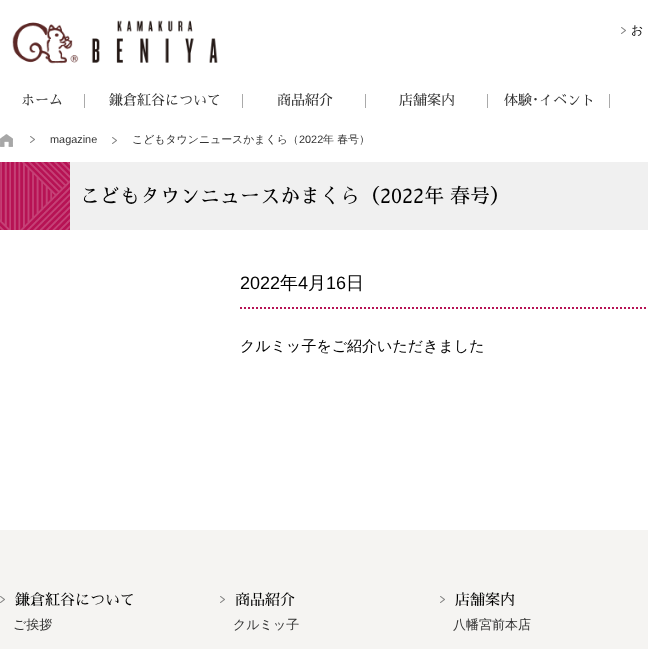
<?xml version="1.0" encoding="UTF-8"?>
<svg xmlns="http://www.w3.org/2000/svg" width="648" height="649">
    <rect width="100%" height="100%" fill="#FFFFFF"/>
    <image x="12" y="20" width="206" height="44" href="img_01.png"/>
    <image x="621" y="27" width="5" height="7" href="img_02.png"/>
    <text x="631" y="34" font-family="WenQuanYi Zen Hei" font-size="12" font-weight="500" fill="#000000">お</text>
    <rect x="84" y="94" width="1" height="14" fill="#AAAAAA"/>
    <text x="21" y="105" font-family="Sawarabi Mincho" font-size="14" fill="#333333">ホーム</text>
    <rect x="242" y="94" width="1" height="14" fill="#AAAAAA"/>
    <text x="109" y="105" font-family="Sawarabi Mincho" font-size="14" fill="#333333">鎌倉紅谷について</text>
    <rect x="365" y="94" width="1" height="14" fill="#AAAAAA"/>
    <text x="277" y="105" font-family="Sawarabi Mincho" font-size="14" fill="#333333">商品紹介</text>
    <rect x="487" y="94" width="1" height="14" fill="#AAAAAA"/>
    <text x="399" y="105" font-family="Sawarabi Mincho" font-size="14" fill="#333333">店舗案内</text>
    <rect x="609" y="94" width="1" height="14" fill="#AAAAAA"/>
    <text x="504" y="105" font-family="Sawarabi Mincho" font-size="14" fill="#333333">体験･イベント</text>
    <image x="0" y="134" width="13" height="13" href="img_03.png"/>
    <image x="30" y="136" width="5" height="7" href="img_02.png"/>
    <text x="50" y="143" font-family="Liberation Sans" font-size="10.9" fill="#333333">magazine</text>
    <image x="112" y="137" width="5" height="7" href="img_02.png"/>
    <text x="132" y="143" font-family="WenQuanYi Zen Hei" font-size="10.9" font-weight="500" fill="#333333">こどもタウンニュースかまくら（</text>
    <text x="299" y="143" font-family="Liberation Sans" font-size="10.9" fill="#333333">2022</text>
    <text x="323" y="143" font-family="WenQuanYi Zen Hei" font-size="10.9" font-weight="500" fill="#333333">年 春号）</text>
    <rect x="70" y="162" width="578" height="68" fill="#F0F0F0"/>
    <rect x="0" y="162" width="70" height="68" fill="#B71254"/>
    <image x="0" y="162" width="70" height="68" href="img_04.png"/>
    <text x="80" y="203" font-family="Sawarabi Mincho" font-size="20" fill="#000000">こどもタウンニュースかまくら（2022年 春号）</text>
    <path d="M 240 308 H 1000" fill="none" stroke="#B71254" stroke-width="2" stroke-dasharray="2 2"/>
    <text x="240" y="289" font-family="Liberation Sans" font-size="18" fill="#000000">2022</text>
    <text x="280" y="289" font-family="WenQuanYi Zen Hei" font-size="18" font-weight="500" fill="#000000">年</text>
    <text x="298" y="289" font-family="Liberation Sans" font-size="18" fill="#000000">4</text>
    <text x="308" y="289" font-family="WenQuanYi Zen Hei" font-size="18" font-weight="500" fill="#000000">月</text>
    <text x="326" y="289" font-family="Liberation Sans" font-size="18" fill="#000000">16</text>
    <text x="346" y="289" font-family="WenQuanYi Zen Hei" font-size="18" font-weight="500" fill="#000000">日</text>
    <text x="240" y="351" font-family="WenQuanYi Zen Hei" font-size="15" font-weight="500" fill="#000000">クルミッ子をご紹介いただきました</text>
    <rect x="0" y="530" width="648" height="119" fill="#F5F4F2"/>
    <image x="0" y="596" width="5" height="7" href="img_05.png"/>
    <text x="15" y="605" font-family="Sawarabi Mincho" font-size="15" fill="#000000">鎌倉紅谷について</text>
    <text x="13" y="629" font-family="WenQuanYi Zen Hei" font-size="13" font-weight="500" fill="#333333">ご挨拶</text>
    <image x="220" y="596" width="5" height="7" href="img_05.png"/>
    <text x="235" y="605" font-family="Sawarabi Mincho" font-size="15" fill="#000000">商品紹介</text>
    <text x="233" y="629" font-family="WenQuanYi Zen Hei" font-size="13" font-weight="500" fill="#333333">クルミッ子</text>
    <image x="440" y="596" width="5" height="7" href="img_05.png"/>
    <text x="455" y="605" font-family="Sawarabi Mincho" font-size="15" fill="#000000">店舗案内</text>
    <text x="453" y="629" font-family="WenQuanYi Zen Hei" font-size="13" font-weight="500" fill="#333333">八幡宮前本店</text>
</svg>
